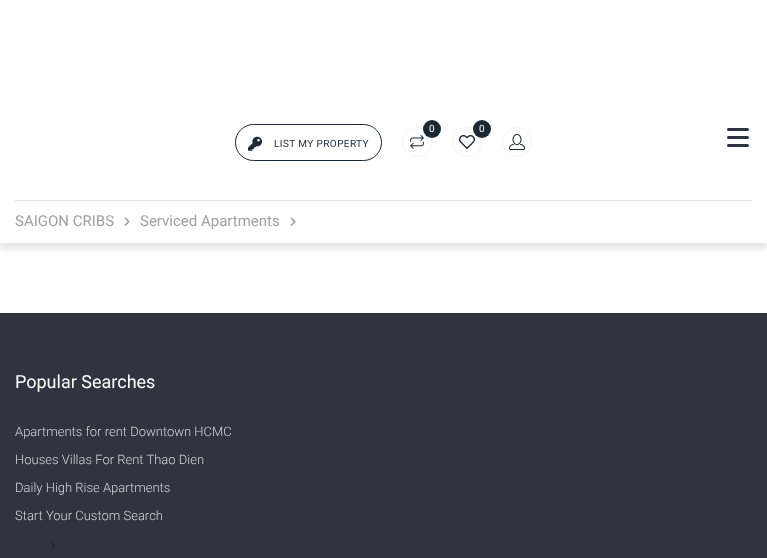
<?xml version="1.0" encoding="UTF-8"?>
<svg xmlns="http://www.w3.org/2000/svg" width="767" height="558">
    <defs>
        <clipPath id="clip1"><rect x="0" y="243" width="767" height="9"/></clipPath>
        <filter id="blur1" x="-50%" y="-200%" width="200%" height="500%"><feGaussianBlur stdDeviation="3"/></filter>
    </defs>
    <rect width="100%" height="100%" fill="#FFFFFF"/>
    <rect x="235.5" y="124.5" width="146" height="36" rx="18" fill="none" stroke="#1C2833"/>
    <image x="248" y="136" width="14" height="15" href="img_01.png"/>
    <text x="274" y="147" font-family="Roboto" font-size="10" letter-spacing="0.4" fill="#1C2833">LIST MY PROPERTY</text>
    <circle cx="417" cy="142" r="14.5" fill="none" stroke="#F5F5F5"/>
    <image x="410" y="135" width="14" height="14" href="img_02.png"/>
    <circle cx="432" cy="129" r="9" fill="#1C2833"/>
    <text x="429" y="132" font-family="Roboto" font-size="10" fill="#FFFFFF">0</text>
    <circle cx="467" cy="142" r="14.5" fill="none" stroke="#F5F5F5"/>
    <image x="459" y="135" width="16" height="14" href="img_03.png"/>
    <circle cx="482" cy="129" r="9" fill="#1C2833"/>
    <text x="479" y="132" font-family="Roboto" font-size="10" fill="#FFFFFF">0</text>
    <circle cx="517" cy="142" r="14.5" fill="none" stroke="#F5F5F5"/>
    <image x="509" y="134" width="16" height="16" href="img_04.png"/>
    <rect x="727" y="128" width="22" height="3" rx="1.5" fill="#303441"/>
    <rect x="727" y="136" width="22" height="3" rx="1.5" fill="#303441"/>
    <rect x="727" y="144" width="22" height="3" rx="1.5" fill="#303441"/>
    <g clip-path="url(#clip1)">
        <rect x="0" y="206" width="767" height="43" fill="#000000" fill-opacity="0.1" filter="url(#blur1)"/>
    </g>
    <rect x="15" y="200" width="737" height="1" fill="#DEDFDF"/>
    <text x="15" y="226" font-family="Roboto" font-size="15" fill="#A0A0A0">SAIGON CRIBS</text>
    <image x="124" y="217" width="6" height="9" href="img_05.png"/>
    <text x="140" y="226" font-family="Roboto" font-size="15" fill="#A0A0A0">Serviced Apartments</text>
    <image x="290" y="217" width="6" height="9" href="img_05.png"/>
    <rect x="0" y="313" width="767" height="245" fill="#303441"/>
    <text x="15" y="388" font-family="Roboto" font-size="18" fill="#FFFFFF">Popular Searches</text>
    <text x="15" y="436" font-family="Roboto" font-size="13" font-weight="300" fill="#D6D6D9">Apartments for rent Downtown HCMC</text>
    <text x="15" y="464" font-family="Roboto" font-size="13" font-weight="300" fill="#D6D6D9">Houses Villas For Rent Thao Dien</text>
    <text x="15" y="492" font-family="Roboto" font-size="13" font-weight="300" fill="#D6D6D9">Daily High Rise Apartments</text>
    <text x="15" y="520" font-family="Roboto" font-size="13" font-weight="300" fill="#D6D6D9">Start Your Custom Search</text>
    <image x="50" y="542" width="5" height="8" href="img_06.png"/>
</svg>
